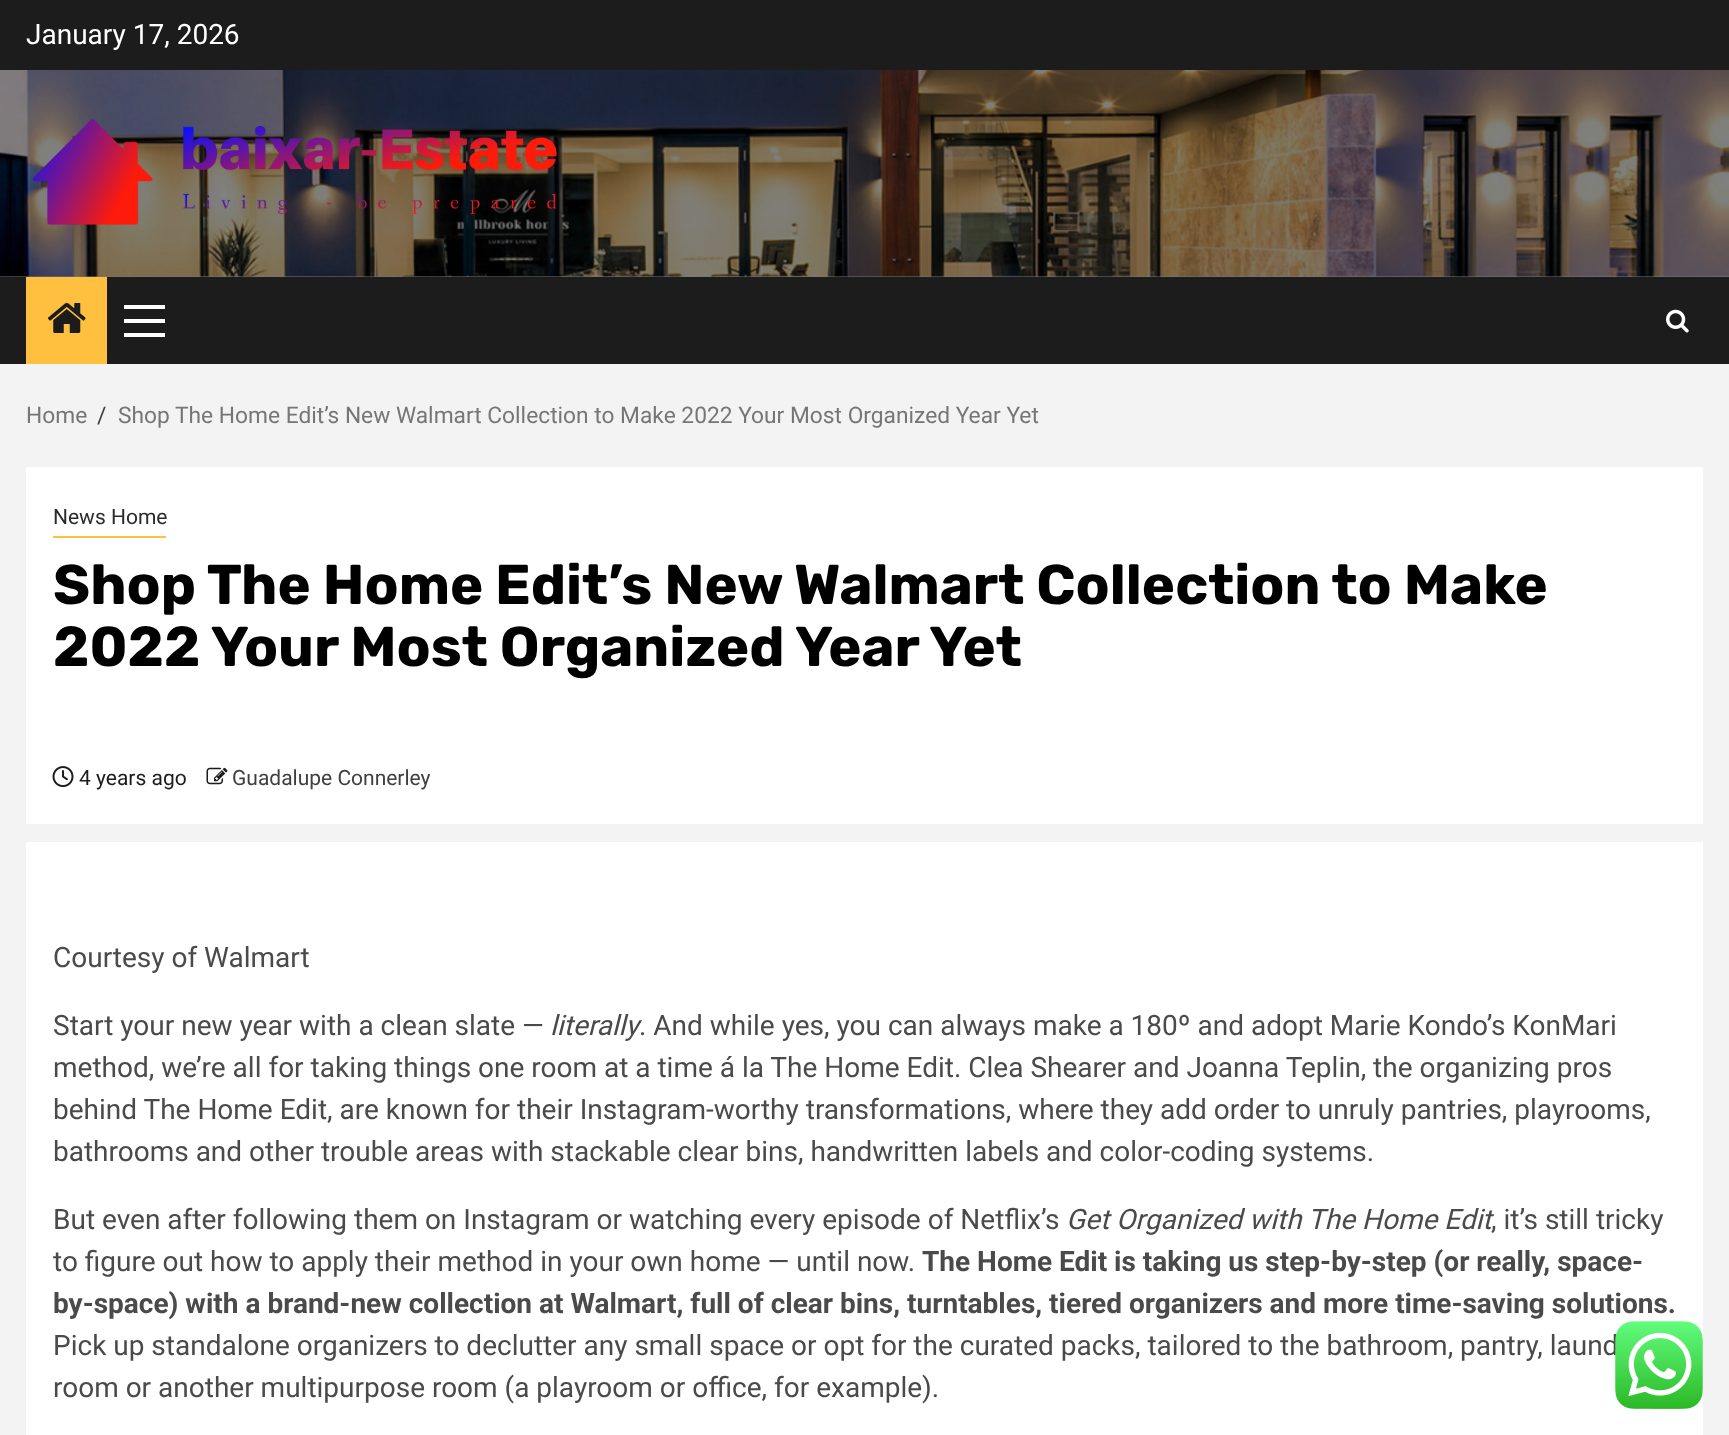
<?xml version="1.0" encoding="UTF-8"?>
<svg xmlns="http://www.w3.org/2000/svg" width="1729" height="1435">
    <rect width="100%" height="100%" fill="#F3F3F3"/>
    <rect x="0" y="276" width="1729" height="1" fill="#787878"/>
    <rect x="0" y="0" width="1729" height="70" fill="#1C1C1C"/>
    <text x="26" y="44" font-family="Roboto" font-size="28" fill="#FFFFFF">January 17, 2026</text>
    <image x="0" y="70" width="1729" height="207" href="img_01.png"/>
    <image x="32" y="118" width="525" height="107" href="img_02.png"/>
    <rect x="0" y="277" width="1729" height="87" fill="#1C1C1C"/>
    <rect x="26" y="277" width="81" height="87" fill="#FFBF3F"/>
    <image x="47" y="303" width="39" height="30" href="img_03.png"/>
    <rect x="124" y="319" width="41" height="4" fill="#FFFFFF"/>
    <rect x="124" y="305" width="41" height="4" fill="#FFFFFF"/>
    <rect x="124" y="333" width="41" height="4" fill="#FFFFFF"/>
    <image x="1666" y="309" width="23" height="24" href="img_04.png"/>
    <text x="26" y="423" font-family="Roboto" font-size="22.75" fill="#767676">Home</text>
    <text x="97" y="423" font-family="Roboto" font-size="22.75" fill="#393E46">/</text>
    <text x="118" y="423" font-family="Roboto" font-size="22.75" fill="#767676">Shop The Home Edit’s New Walmart Collection to Make 2022 Your Most Organized Year Yet</text>
    <rect x="26" y="467" width="1677" height="357" fill="#FFFFFF"/>
    <rect x="53" y="536" width="113" height="2" fill="#FFBF3F"/>
    <text x="53" y="524" font-family="Roboto" font-size="21" fill="#2B2B2B">News Home</text>
    <text font-family="Rubik" font-size="56" font-weight="700" fill="#000000">
        <tspan x="53" y="604">Shop The Home Edit’s New Walmart Collection to Make</tspan>
        <tspan x="53" y="666">2022 Your Most Organized Year Yet</tspan>
    </text>
    <image x="52" y="766" width="22" height="21" href="img_05.png"/>
    <text x="79" y="785" font-family="Roboto" font-size="21" fill="#1C1C1C">4 years ago</text>
    <image x="206" y="767" width="22" height="18" href="img_06.png"/>
    <text x="232" y="785" font-family="Roboto" font-size="21" fill="#404040">Guadalupe Connerley</text>
    <rect x="26" y="842" width="1677" height="593" fill="#FFFFFF"/>
    <text x="53" y="967" font-family="Roboto" font-size="28" fill="#4A4A4A">Courtesy of Walmart</text>
    <text x="53" y="1035" font-family="Roboto" font-size="28" fill="#4A4A4A">Start your new year with a clean slate —</text>
    <text x="550" y="1035" font-family="Roboto" font-size="28" font-style="italic" fill="#4A4A4A">literally</text>
    <text x="639" y="1035" font-family="Roboto" font-size="28" fill="#4A4A4A">. And while yes, you can always make a 180º and adopt Marie Kondo’s KonMari</text>
    <text font-family="Roboto" font-size="28" fill="#4A4A4A">
        <tspan x="53" y="1077">method, we’re all for taking things one room at a time á la The Home Edit. Clea Shearer and Joanna Teplin, the organizing pros</tspan>
        <tspan x="53" y="1119">behind The Home Edit, are known for their Instagram-worthy transformations, where they add order to unruly pantries, playrooms,</tspan>
        <tspan x="53" y="1161">bathrooms and other trouble areas with stackable clear bins, handwritten labels and color-coding systems.</tspan>
    </text>
    <text x="53" y="1229" font-family="Roboto" font-size="28" fill="#4A4A4A">But even after following them on Instagram or watching every episode of Netflix’s</text>
    <text x="1066" y="1229" font-family="Roboto" font-size="28" font-style="italic" fill="#4A4A4A">Get Organized with The Home Edit</text>
    <text x="1491" y="1229" font-family="Roboto" font-size="28" fill="#4A4A4A">, it’s still tricky</text>
    <text x="53" y="1271" font-family="Roboto" font-size="28" fill="#4A4A4A">to figure out how to apply their method in your own home — until now.</text>
    <text x="922" y="1271" font-family="Roboto" font-size="28" font-weight="700" fill="#4A4A4A">The Home Edit is taking us step-by-step (or really, space-</text>
    <text x="53" y="1313" font-family="Roboto" font-size="28" font-weight="700" fill="#4A4A4A">by-space) with a brand-new collection at Walmart, full of clear bins, turntables, tiered organizers and more time-saving solutions.</text>
    <text font-family="Roboto" font-size="28" fill="#4A4A4A">
        <tspan x="53" y="1355">Pick up standalone organizers to declutter any small space or opt for the curated packs, tailored to the bathroom, pantry, laund</tspan>
        <tspan x="53" y="1397">room or another multipurpose room (a playroom or office, for example).</tspan>
    </text>
    <image x="1615" y="1321" width="88" height="88" href="img_07.png"/>
</svg>
